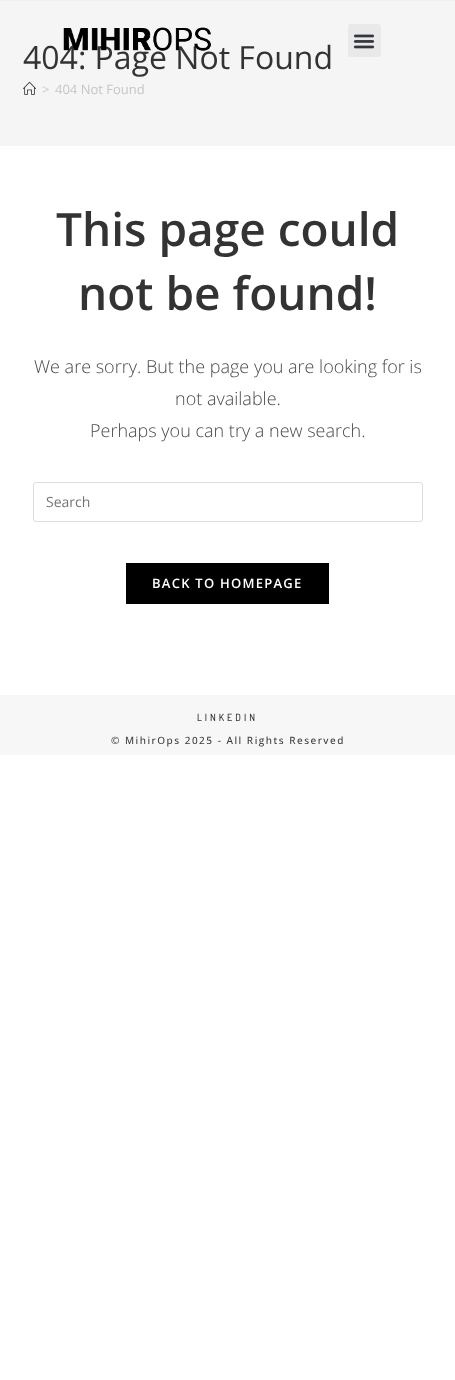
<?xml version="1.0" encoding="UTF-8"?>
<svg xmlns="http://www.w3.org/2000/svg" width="455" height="1380">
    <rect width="100%" height="100%" fill="#FFFFFF"/>
    <rect x="0" y="0" width="455" height="1" fill="#F1F1F1"/>
    <rect x="0" y="1" width="455" height="145" fill="#F5F5F5"/>
    <text x="23" y="69" font-family="Open Sans" font-size="32" fill="#333333">404: Page Not Found</text>
    <image x="63" y="27" width="148" height="24" href="img_01.png"/>
    <rect x="348" y="24" width="33" height="33" rx="3" fill="#E9E9E9"/>
    <image x="353" y="34" width="22" height="15" href="img_02.png"/>
    <image x="23" y="81" width="13" height="14" href="img_03.png"/>
    <text x="42" y="94" font-family="Open Sans" font-size="13" fill="#C6C6C6">&gt;</text>
    <text x="55" y="94" font-family="Open Sans" font-size="13" fill="#C6C6C6">404 Not Found</text>
    <text x="56" y="246" font-family="Open Sans" font-size="46" font-weight="600" fill="#333333">This page could</text>
    <text x="78" y="310" font-family="Open Sans" font-size="46" font-weight="600" fill="#333333">not be found!</text>
    <text x="34" y="373" font-family="Open Sans" font-size="18" font-weight="300" fill="#4A4A4A">We are sorry. But the page you are looking for is</text>
    <text x="175" y="405" font-family="Open Sans" font-size="18" font-weight="300" fill="#4A4A4A">not available.</text>
    <text x="90" y="437" font-family="Open Sans" font-size="18" font-weight="300" fill="#4A4A4A">Perhaps you can try a new search.</text>
    <rect x="33.5" y="482.5" width="389" height="39" rx="2.5" fill="none" stroke="#DDDDDD"/>
    <text x="46" y="507" font-family="Open Sans" font-size="14" fill="#757575">Search</text>
    <rect x="126" y="563" width="203" height="41" fill="#000000"/>
    <text x="152" y="588" font-family="Open Sans" font-size="13" font-weight="600" letter-spacing="1.25" fill="#FFFFFF">BACK TO HOMEPAGE</text>
    <rect x="0" y="695" width="455" height="60" fill="#F7F7F7"/>
    <text x="197" y="721" font-family="Dosis" font-size="10" font-weight="500" letter-spacing="3" fill="#333333">LINKEDIN</text>
    <text x="111" y="744" font-family="Open Sans" font-size="10" font-weight="500" letter-spacing="1.5" fill="#3D3E3E">© MihirOps 2025 - All Rights Reserved</text>
</svg>
